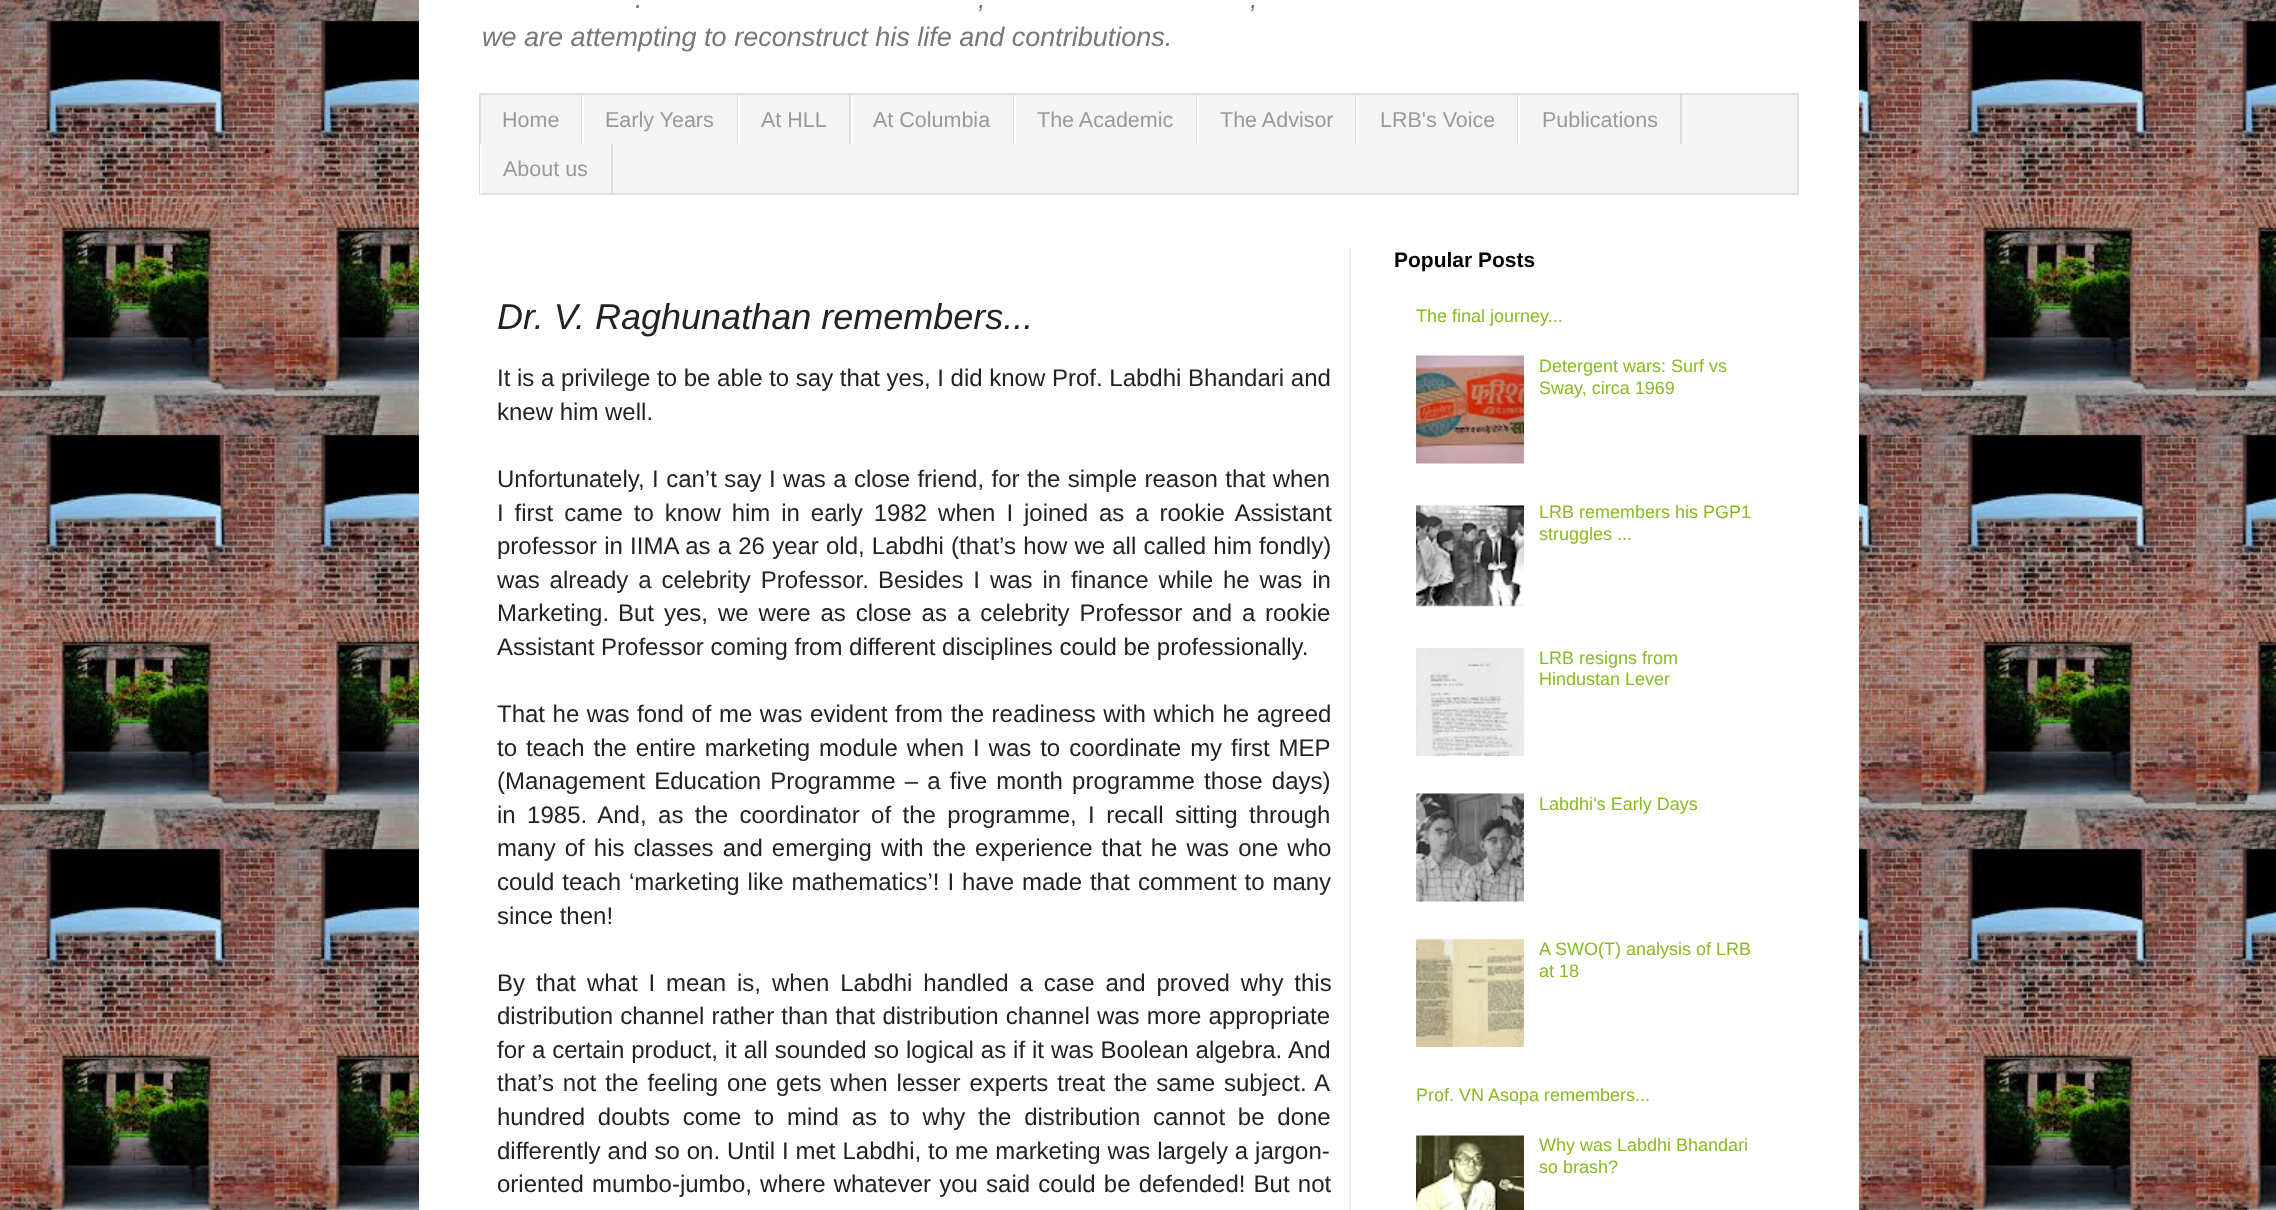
<?xml version="1.0" encoding="UTF-8"?>
<svg xmlns="http://www.w3.org/2000/svg" width="2276" height="1210">
    <rect width="100%" height="100%" fill="#FFFFFF"/>
    <image x="0" y="0" width="2276" height="1210" href="img_01.png"/>
    <rect x="419" y="0" width="1440" height="1210" fill="#FFFFFF"/>
    <text x="635" y="8" font-family="Liberation Sans" font-size="27" font-style="italic" fill="#777777">.</text>
    <text x="978" y="8" font-family="Liberation Sans" font-size="27" font-style="italic" fill="#777777">,</text>
    <text x="1250" y="8" font-family="Liberation Sans" font-size="27" font-style="italic" fill="#777777">,</text>
    <text x="482" y="46" font-family="Liberation Sans" font-size="27" font-style="italic" fill="#777777">we are attempting to reconstruct his life and contributions.</text>
    <rect x="480" y="94" width="1318" height="100" fill="#F5F5F5" stroke="#DDDDDD" stroke-width="2"/>
    <rect x="581" y="95" width="1" height="49" fill="#DDDDDD"/>
    <text x="502" y="127" font-family="Liberation Sans" font-size="21.5" fill="#999999">Home</text>
    <rect x="737" y="95" width="1" height="49" fill="#DDDDDD"/>
    <rect x="582" y="95" width="2" height="49" fill="#FFFFFF"/>
    <text x="605" y="127" font-family="Liberation Sans" font-size="21.5" fill="#999999">Early Years</text>
    <rect x="849" y="95" width="2" height="49" fill="#DDDDDD"/>
    <rect x="738" y="95" width="2" height="49" fill="#FFFFFF"/>
    <text x="761" y="127" font-family="Liberation Sans" font-size="21.5" fill="#999999">At HLL</text>
    <rect x="1013" y="95" width="1" height="49" fill="#DDDDDD"/>
    <rect x="851" y="95" width="2" height="49" fill="#FFFFFF"/>
    <text x="873" y="127" font-family="Liberation Sans" font-size="21.5" fill="#999999">At Columbia</text>
    <rect x="1196" y="95" width="1" height="49" fill="#DDDDDD"/>
    <rect x="1014" y="95" width="2" height="49" fill="#FFFFFF"/>
    <text x="1037" y="127" font-family="Liberation Sans" font-size="21.5" fill="#999999">The Academic</text>
    <rect x="1355" y="95" width="1" height="49" fill="#DDDDDD"/>
    <rect x="1197" y="95" width="2" height="49" fill="#FFFFFF"/>
    <text x="1220" y="127" font-family="Liberation Sans" font-size="21.5" fill="#999999">The Advisor</text>
    <rect x="1517" y="95" width="1" height="49" fill="#DDDDDD"/>
    <rect x="1356" y="95" width="2" height="49" fill="#FFFFFF"/>
    <text x="1380" y="127" font-family="Liberation Sans" font-size="21.5" fill="#999999">LRB's Voice</text>
    <rect x="1680" y="95" width="2" height="49" fill="#DDDDDD"/>
    <rect x="1518" y="95" width="2" height="49" fill="#FFFFFF"/>
    <text x="1542" y="127" font-family="Liberation Sans" font-size="21.5" fill="#999999">Publications</text>
    <rect x="611" y="144" width="2" height="50" fill="#DDDDDD"/>
    <rect x="480" y="144" width="2" height="50" fill="#FFFFFF"/>
    <text x="503" y="176" font-family="Liberation Sans" font-size="21.5" fill="#999999">About us</text>
    <rect x="1349" y="248" width="2" height="962" fill="#EEEEEE"/>
    <text x="497" y="329" font-family="Liberation Sans" font-size="36" font-style="italic" fill="#222222">Dr. V. Raghunathan remembers...</text>
    <text font-family="Liberation Sans" font-size="24" fill="#222222">
        <tspan x="497" y="386">It is a privilege to be able to say that yes, I did know Prof. Labdhi Bhandari and</tspan>
        <tspan x="497" y="420">knew him well.</tspan>
    </text>
    <text font-family="Liberation Sans" font-size="24" fill="#222222">
        <tspan x="497" y="487" word-spacing="0.75">Unfortunately, I can’t say I was a close friend, for the simple reason that when</tspan>
        <tspan x="497" y="521" word-spacing="4.25">I first came to know him in early 1982 when I joined as a rookie Assistant</tspan>
        <tspan x="497" y="554" word-spacing="0.5">professor in IIMA as a 26 year old, Labdhi (that’s how we all called him fondly)</tspan>
        <tspan x="497" y="588" word-spacing="3.25">was already a celebrity Professor.</tspan>
    </text>
    <text x="878" y="588" word-spacing="3.25" font-family="Liberation Sans" font-size="24" fill="#222222">Besides I was in finance while he was in</text>
    <text x="497" y="621" font-family="Liberation Sans" font-size="24" fill="#222222">Marketing.</text>
    <text x="618" y="621" word-spacing="3.25" font-family="Liberation Sans" font-size="24" fill="#222222">But yes, we were as close as a celebrity Professor and a</text>
    <text x="1265" y="621" font-family="Liberation Sans" font-size="24" fill="#222222">rookie</text>
    <text x="497" y="655" font-family="Liberation Sans" font-size="24" fill="#222222">Assistant Professor coming from different disciplines could be professionally.</text>
    <text font-family="Liberation Sans" font-size="24" fill="#222222">
        <tspan x="497" y="722" word-spacing="0.9">That he was fond of me was evident from the readiness with which he agreed</tspan>
        <tspan x="497" y="756" word-spacing="2.25">to teach the entire marketing module when I was to coordinate my first MEP</tspan>
        <tspan x="497" y="789" word-spacing="2.5">(Management Education Programme – a five month programme those days)</tspan>
        <tspan x="497" y="823" word-spacing="4.75">in 1985. And, as the coordinator of the programme, I recall sitting through</tspan>
        <tspan x="497" y="856" word-spacing="2.4">many of his classes and emerging with the experience that he was one who</tspan>
        <tspan x="497" y="890" word-spacing="1.25">could teach ‘marketing like mathematics’! I have made that comment to many</tspan>
        <tspan x="497" y="924">since then!</tspan>
    </text>
    <text font-family="Liberation Sans" font-size="24" fill="#222222">
        <tspan x="497" y="991" word-spacing="4.25">By that what I mean is, when Labdhi handled a case and proved why this</tspan>
        <tspan x="497" y="1024" word-spacing="0.5">distribution channel rather than that distribution channel was more appropriate</tspan>
        <tspan x="497" y="1058" word-spacing="0.25">for a certain product, it all sounded so logical as if it was Boolean algebra.</tspan>
    </text>
    <text x="1288" y="1058" font-family="Liberation Sans" font-size="24" fill="#222222">And</text>
    <text x="497" y="1091" word-spacing="2.25" font-family="Liberation Sans" font-size="24" fill="#222222">that’s not the feeling one gets when lesser experts treat the same subject.</text>
    <text x="1314" y="1091" font-family="Liberation Sans" font-size="24" fill="#222222">A</text>
    <text font-family="Liberation Sans" font-size="24" fill="#222222">
        <tspan x="497" y="1125" word-spacing="6.1">hundred doubts come to mind as to why the distribution cannot be done</tspan>
        <tspan x="497" y="1159" word-spacing="0.25">differently and so on.</tspan>
    </text>
    <text x="727" y="1159" word-spacing="0.25" font-family="Liberation Sans" font-size="24" fill="#222222">Until I met Labdhi, to me marketing was largely a jargon-</text>
    <text x="497" y="1192" word-spacing="1.5" font-family="Liberation Sans" font-size="24" fill="#222222">oriented mumbo-jumbo, where whatever you said could be defended! But not</text>
    <text x="1394" y="267" font-family="Liberation Sans" font-size="21" font-weight="700" fill="#000000">Popular Posts</text>
    <text x="1416" y="322" font-family="Liberation Sans" font-size="18" fill="#88BB21">The final journey...</text>
    <image x="1416" y="355" width="108" height="109" href="img_02.png"/>
    <text font-family="Liberation Sans" font-size="18" fill="#88BB21">
        <tspan x="1539" y="372">Detergent wars: Surf vs</tspan>
        <tspan x="1539" y="394">Sway, circa 1969</tspan>
    </text>
    <image x="1416" y="504" width="108" height="103" href="img_03.png"/>
    <text font-family="Liberation Sans" font-size="18" fill="#88BB21">
        <tspan x="1539" y="518">LRB remembers his PGP1</tspan>
        <tspan x="1539" y="540">struggles ...</tspan>
    </text>
    <image x="1416" y="648" width="108" height="108" href="img_04.png"/>
    <text font-family="Liberation Sans" font-size="18" fill="#88BB21">
        <tspan x="1539" y="664">LRB resigns from</tspan>
        <tspan x="1539" y="685">Hindustan Lever</tspan>
    </text>
    <image x="1416" y="793" width="108" height="109" href="img_05.png"/>
    <text x="1539" y="810" font-family="Liberation Sans" font-size="18" fill="#88BB21">Labdhi’s Early Days</text>
    <image x="1416" y="939" width="108" height="108" href="img_06.png"/>
    <text font-family="Liberation Sans" font-size="18" fill="#88BB21">
        <tspan x="1539" y="955">A SWO(T) analysis of LRB</tspan>
        <tspan x="1539" y="977">at 18</tspan>
    </text>
    <text x="1416" y="1101" font-family="Liberation Sans" font-size="18" fill="#88BB21">Prof. VN Asopa remembers...</text>
    <image x="1416" y="1135" width="108" height="75" href="img_07.png"/>
    <text font-family="Liberation Sans" font-size="18" fill="#88BB21">
        <tspan x="1539" y="1151">Why was Labdhi Bhandari</tspan>
        <tspan x="1539" y="1173">so brash?</tspan>
    </text>
</svg>
